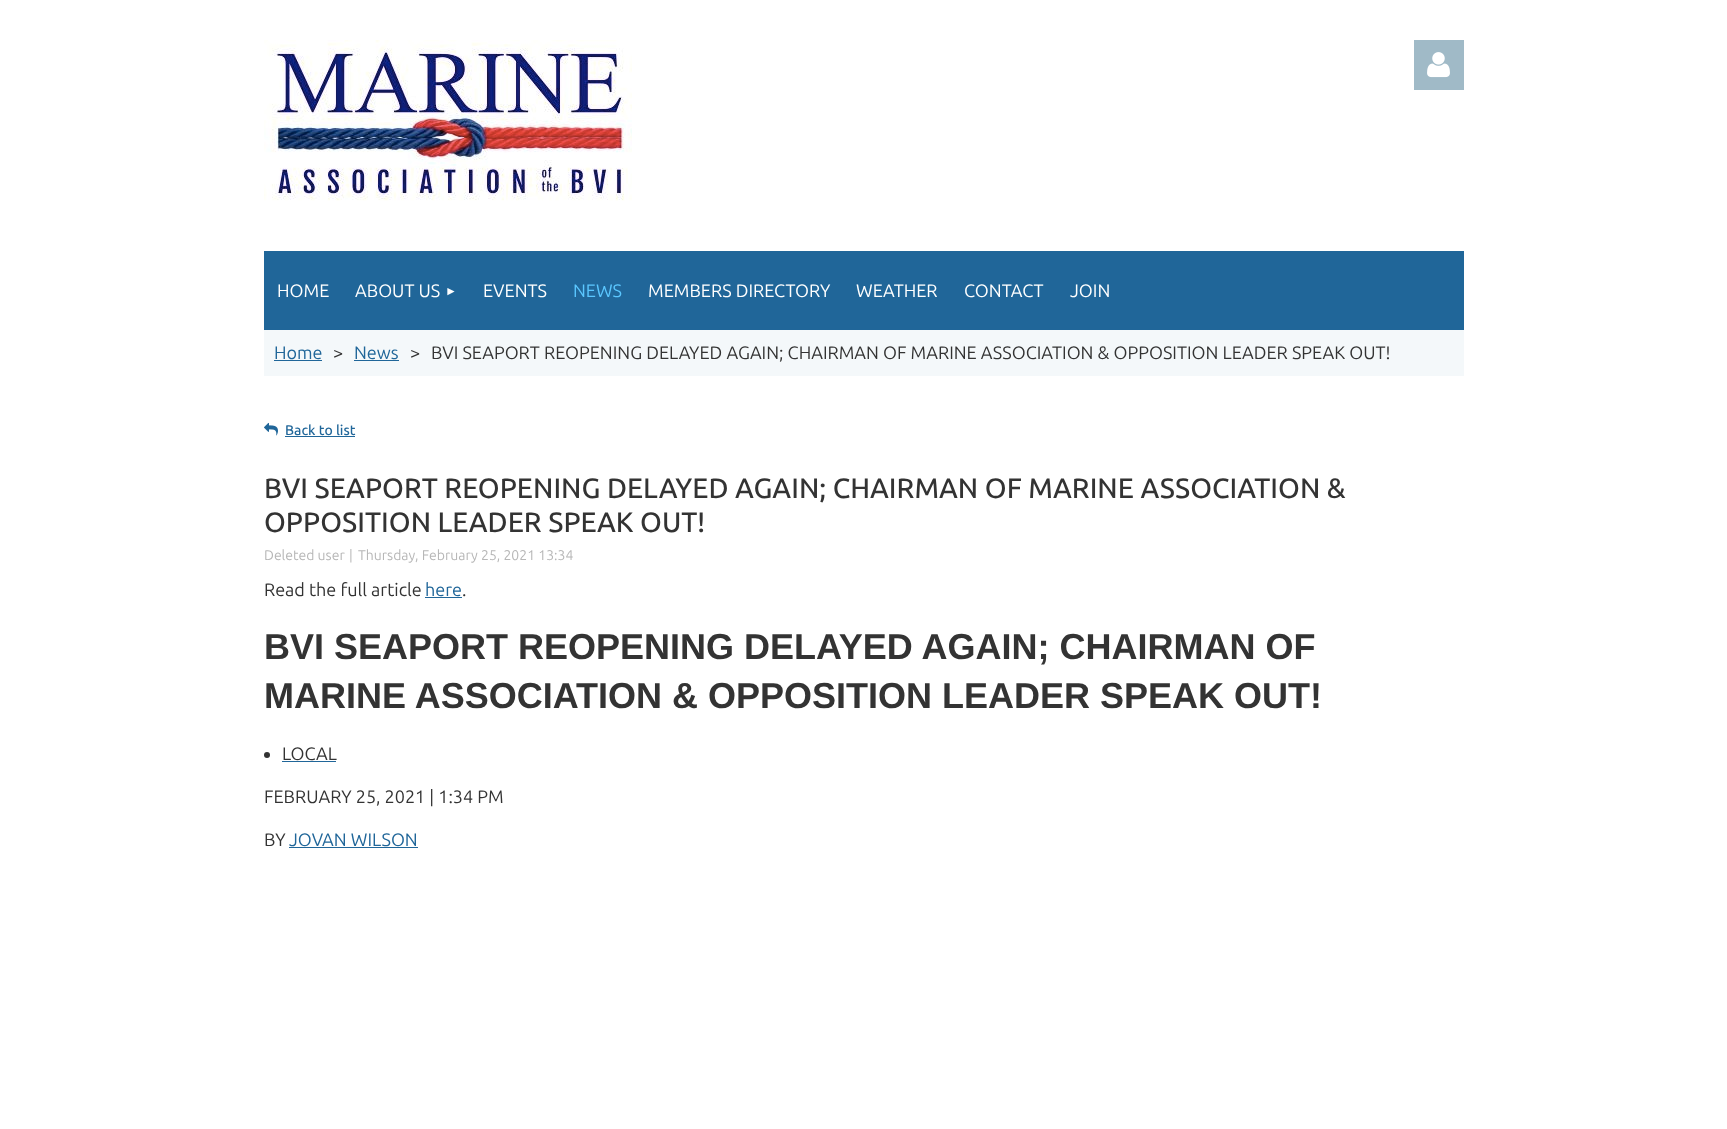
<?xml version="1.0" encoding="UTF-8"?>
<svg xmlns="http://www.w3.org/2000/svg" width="1727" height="1129">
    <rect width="100%" height="100%" fill="#FFFFFF"/>
    <image x="264" y="40" width="368" height="161" href="img_01.png"/>
    <rect x="1414" y="40" width="50" height="50" fill="#A0BAC7"/>
    <image x="1427" y="52" width="23" height="26" href="img_02.png"/>
    <rect x="264" y="330" width="1200" height="46" fill="#F4F8FA"/>
    <rect x="264" y="251" width="1200" height="79" fill="#206699"/>
    <text x="277" y="297" font-family="Ubuntu" font-size="18" fill="#FFFFFF">HOME</text>
    <text x="355" y="297" font-family="Ubuntu" font-size="18" fill="#FFFFFF">ABOUT US</text>
    <text x="445" y="295" font-family="Liberation Sans" font-size="12" fill="#FFFFFF">►</text>
    <text x="483" y="297" font-family="Ubuntu" font-size="18" fill="#FFFFFF">EVENTS</text>
    <text x="573" y="297" font-family="Ubuntu" font-size="18" fill="#5BC7FF">NEWS</text>
    <text x="648" y="297" font-family="Ubuntu" font-size="18" fill="#FFFFFF">MEMBERS DIRECTORY</text>
    <text x="856" y="297" font-family="Ubuntu" font-size="18" fill="#FFFFFF">WEATHER</text>
    <text x="964" y="297" font-family="Ubuntu" font-size="18" fill="#FFFFFF">CONTACT</text>
    <text x="1070" y="297" font-family="Ubuntu" font-size="18" fill="#FFFFFF">JOIN</text>
    <text x="274" y="359" font-family="Ubuntu" font-size="18" fill="#206699">Home</text>
    <rect x="274" y="360" width="48" height="1" fill="#206699"/>
    <text x="333" y="359" font-family="Ubuntu" font-size="18" fill="#333333">&gt;</text>
    <text x="354" y="359" font-family="Ubuntu" font-size="18" fill="#206699">News</text>
    <rect x="354" y="360" width="45" height="1" fill="#206699"/>
    <text x="410" y="359" font-family="Ubuntu" font-size="18" fill="#333333">&gt;</text>
    <text x="431" y="359" font-family="Ubuntu" font-size="18" fill="#333333">BVI SEAPORT REOPENING DELAYED AGAIN; CHAIRMAN OF MARINE ASSOCIATION &amp; OPPOSITION LEADER SPEAK OUT!</text>
    <image x="264" y="422" width="14" height="14" href="img_03.png"/>
    <text x="285" y="435" font-family="Ubuntu" font-size="14" font-weight="500" fill="#206699">Back to list</text>
    <rect x="285" y="436" width="70" height="1" fill="#206699"/>
    <text font-family="Ubuntu" font-size="28" font-weight="500" fill="#333333">
        <tspan x="264" y="498">BVI SEAPORT REOPENING DELAYED AGAIN; CHAIRMAN OF MARINE ASSOCIATION &amp;</tspan>
        <tspan x="264" y="532">OPPOSITION LEADER SPEAK OUT!</tspan>
    </text>
    <text x="264" y="560" font-family="Ubuntu" font-size="14" fill="#B7B7B7">Deleted user</text>
    <text x="349" y="560" font-family="Ubuntu" font-size="14" fill="#B7B7B7">|</text>
    <text x="358" y="560" font-family="Ubuntu" font-size="14" fill="#B7B7B7">Thursday, February 25, 2021 13:34</text>
    <text x="264" y="596" font-family="Ubuntu" font-size="18" fill="#333333">Read the full article</text>
    <text x="425" y="596" font-family="Ubuntu" font-size="18" fill="#206699">here</text>
    <rect x="425" y="597" width="37" height="1" fill="#206699"/>
    <text x="462" y="596" font-family="Ubuntu" font-size="18" fill="#333333">.</text>
    <text font-family="Liberation Sans" font-size="36" font-weight="700" fill="#333333">
        <tspan x="264" y="659">BVI SEAPORT REOPENING DELAYED AGAIN; CHAIRMAN OF</tspan>
        <tspan x="264" y="708">MARINE ASSOCIATION &amp; OPPOSITION LEADER SPEAK OUT!</tspan>
    </text>
    <circle cx="267" cy="755" r="3" fill="#333333"/>
    <text x="282" y="760" font-family="Ubuntu" font-size="18" fill="#333333">LOCAL</text>
    <rect x="282" y="761" width="54" height="1" fill="#206699"/>
    <text x="264" y="803" font-family="Ubuntu" font-size="18" fill="#333333">FEBRUARY 25, 2021 | 1:34 PM</text>
    <text x="264" y="846" font-family="Ubuntu" font-size="18" fill="#333333">BY</text>
    <text x="289" y="846" font-family="Ubuntu" font-size="18" fill="#206699">JOVAN WILSON</text>
    <rect x="289" y="847" width="129" height="1" fill="#206699"/>
</svg>
